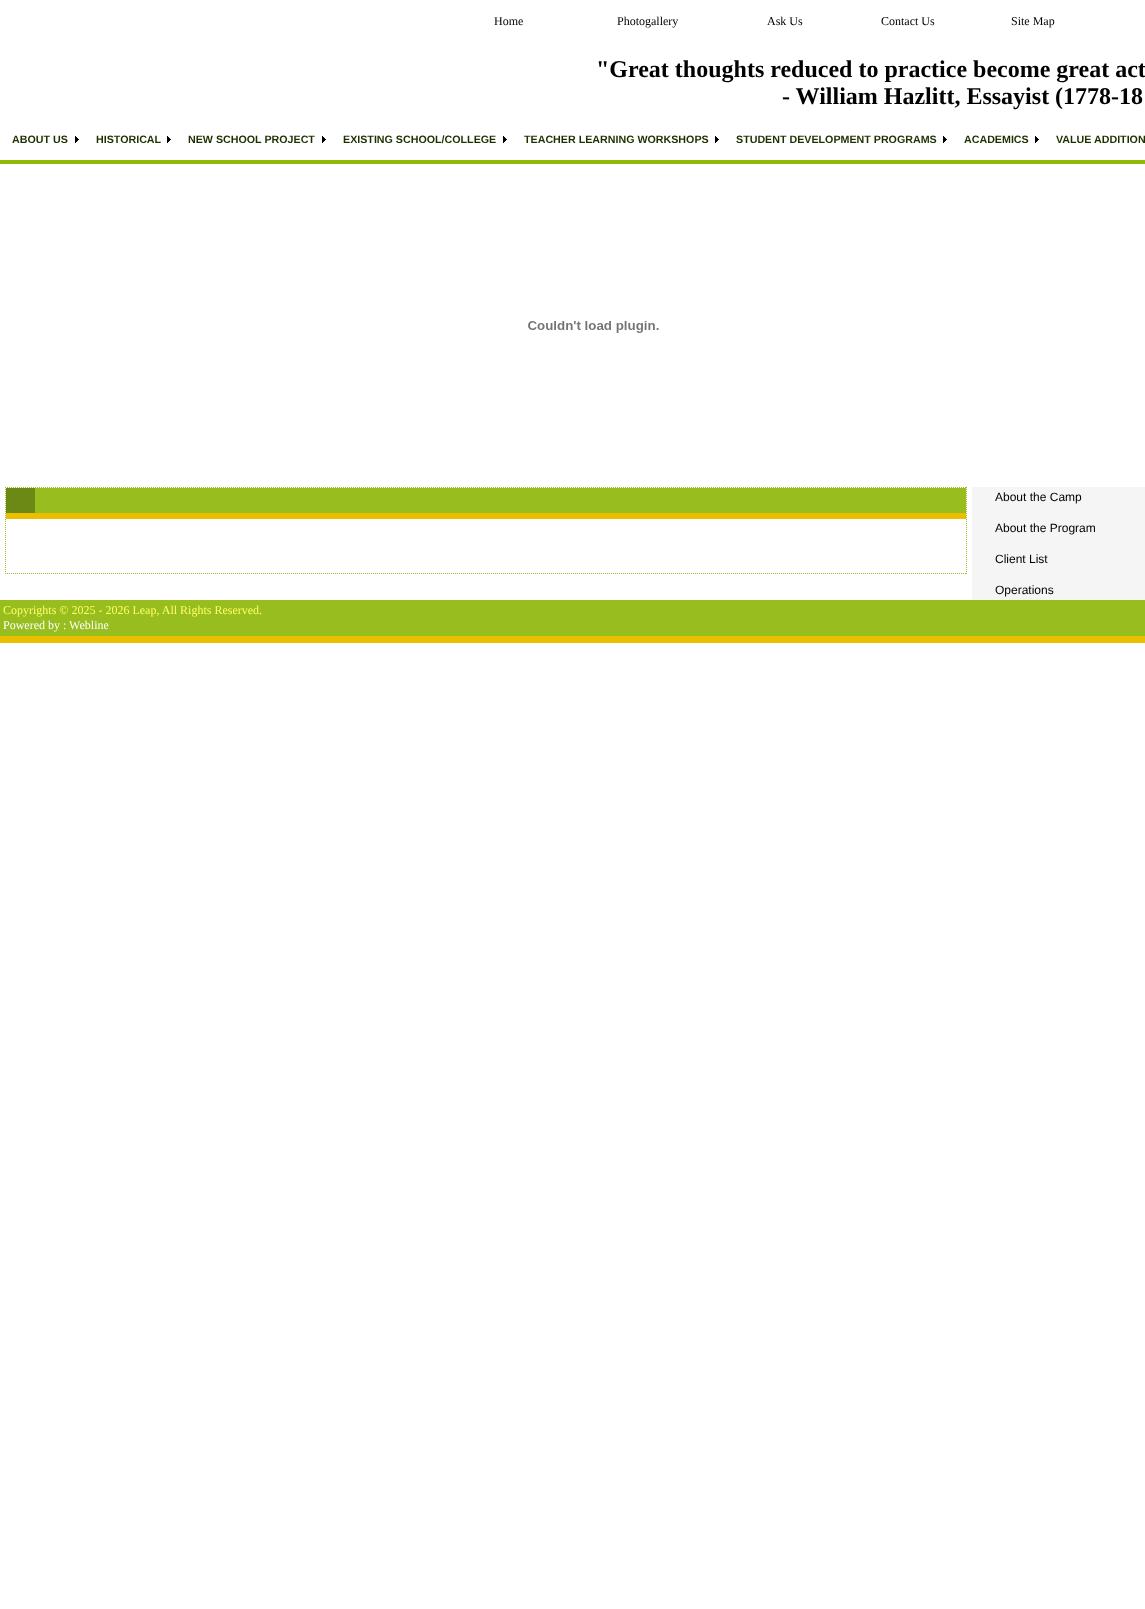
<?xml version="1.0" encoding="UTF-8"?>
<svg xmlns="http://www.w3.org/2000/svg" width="1145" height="1609">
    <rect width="100%" height="100%" fill="#FFFFFF"/>
    <text x="494" y="25" font-family="Liberation Serif" font-size="12" fill="#000000">Home</text>
    <text x="617" y="25" font-family="Liberation Serif" font-size="12" fill="#000000">Photogallery</text>
    <text x="767" y="25" font-family="Liberation Serif" font-size="12" fill="#000000">Ask Us</text>
    <text x="881" y="25" font-family="Liberation Serif" font-size="12" fill="#000000">Contact Us</text>
    <text x="1011" y="25" font-family="Liberation Serif" font-size="12" fill="#000000">Site Map</text>
    <text x="596" y="77" font-family="Liberation Serif" font-size="24" font-weight="700" fill="#000000">"Great thoughts reduced to practice become great act</text>
    <text x="782" y="104" font-family="Liberation Serif" font-size="24" font-weight="700" fill="#000000">- William Hazlitt, Essayist (1778-18</text>
    <text x="12" y="143" font-family="Liberation Sans" font-size="10.7" font-weight="700" fill="#1D3100">ABOUT US</text>
    <image x="75" y="136" width="4" height="7" href="img_01.png"/>
    <text x="96" y="143" font-family="Liberation Sans" font-size="10.7" font-weight="700" fill="#1D3100">HISTORICAL</text>
    <image x="167" y="136" width="4" height="7" href="img_01.png"/>
    <text x="188" y="143" font-family="Liberation Sans" font-size="10.7" font-weight="700" fill="#1D3100">NEW SCHOOL PROJECT</text>
    <image x="322" y="136" width="4" height="7" href="img_01.png"/>
    <text x="343" y="143" font-family="Liberation Sans" font-size="10.7" font-weight="700" fill="#1D3100">EXISTING SCHOOL/COLLEGE</text>
    <image x="503" y="136" width="4" height="7" href="img_01.png"/>
    <text x="524" y="143" font-family="Liberation Sans" font-size="10.7" font-weight="700" fill="#1D3100">TEACHER LEARNING WORKSHOPS</text>
    <image x="715" y="136" width="4" height="7" href="img_01.png"/>
    <text x="736" y="143" font-family="Liberation Sans" font-size="10.7" font-weight="700" fill="#1D3100">STUDENT DEVELOPMENT PROGRAMS</text>
    <image x="943" y="136" width="4" height="7" href="img_01.png"/>
    <text x="964" y="143" font-family="Liberation Sans" font-size="10.7" font-weight="700" fill="#1D3100">ACADEMICS</text>
    <image x="1035" y="136" width="4" height="7" href="img_01.png"/>
    <text x="1056" y="143" font-family="Liberation Sans" font-size="10.7" font-weight="700" fill="#1D3100">VALUE ADDITION</text>
    <rect x="0" y="160" width="1145" height="4" fill="#90B907"/>
    <image x="528" y="321" width="131" height="12" href="img_02.png"/>
    <path d="M 5 487.5 H 967" fill="none" stroke="#97BD1E" stroke-dasharray="1 1"/>
    <path d="M 966.5 487 V 574" fill="none" stroke="#97BD1E" stroke-dasharray="1 1"/>
    <path d="M 5 573.5 H 967" fill="none" stroke="#97BD1E" stroke-dasharray="1 1"/>
    <path d="M 5.5 487 V 574" fill="none" stroke="#97BD1E" stroke-dasharray="1 1"/>
    <rect x="6" y="488" width="29" height="25" fill="#6C8916"/>
    <rect x="35" y="488" width="931" height="25" fill="#97BD1E"/>
    <rect x="6" y="513" width="960" height="6" fill="#EABF00"/>
    <rect x="972" y="487" width="173" height="113" fill="#F5F5F5"/>
    <text x="995" y="501" font-family="Liberation Sans" font-size="12" fill="#000000">About the Camp</text>
    <text x="995" y="532" font-family="Liberation Sans" font-size="12" fill="#000000">About the Program</text>
    <text x="995" y="563" font-family="Liberation Sans" font-size="12" fill="#000000">Client List</text>
    <text x="995" y="594" font-family="Liberation Sans" font-size="12" fill="#000000">Operations</text>
    <rect x="0" y="600" width="1145" height="36" fill="#97BD1E"/>
    <text x="3" y="614" font-family="Liberation Serif" font-size="12" fill="#FFFF66">Copyrights © 2025 - 2026 Leap, All Rights Reserved.</text>
    <text x="3" y="629" font-family="Liberation Serif" font-size="12" fill="#FFFFFF">Powered by : Webline</text>
    <rect x="0" y="636" width="1145" height="7" fill="#EABF00"/>
</svg>
